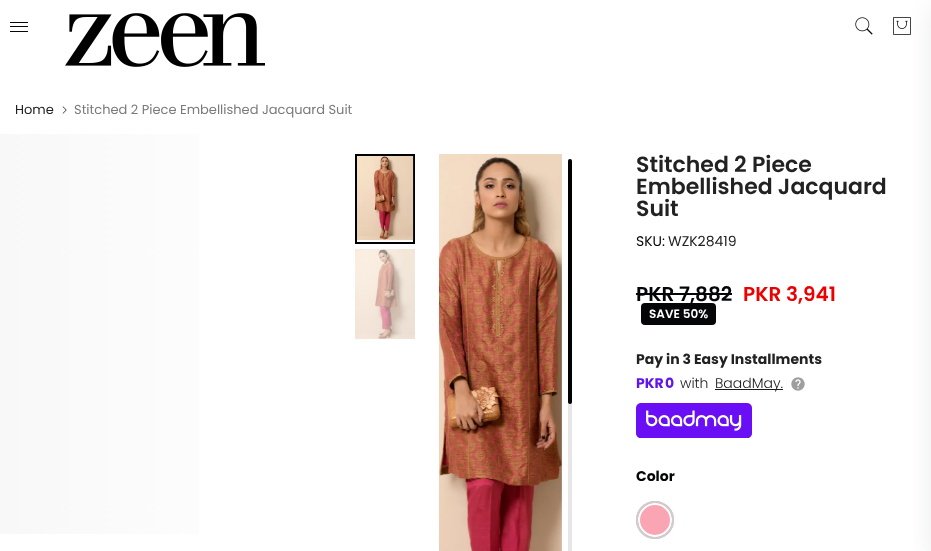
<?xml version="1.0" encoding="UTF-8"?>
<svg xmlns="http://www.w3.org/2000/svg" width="931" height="551">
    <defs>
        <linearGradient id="g1" gradientUnits="userSpaceOnUse" x1="310" y1="334" x2="0" y2="334"><stop offset="0" stop-color="#FFFFFF"/><stop offset="1" stop-color="#F8F8F8"/></linearGradient>
        <filter id="blur1" x="-50%" y="-200%" width="200%" height="500%"><feGaussianBlur stdDeviation="12"/></filter>
    </defs>
    <rect width="100%" height="100%" fill="#FFFFFF"/>
    <rect x="10" y="22" width="18" height="1" fill="#050608"/>
    <rect x="10" y="26" width="18" height="1" fill="#050608"/>
    <rect x="10" y="31" width="18" height="1" fill="#050608"/>
    <image x="65" y="13" width="200" height="54" href="img_01.png"/>
    <image x="855" y="17" width="18" height="18" href="img_02.png"/>
    <image x="893" y="17" width="18" height="18" href="img_03.png"/>
    <text x="15" y="114" font-family="Poppins" font-size="13" fill="#222222">Home</text>
    <image x="62" y="106" width="5" height="8" href="img_04.png"/>
    <text x="74" y="114" font-family="Poppins" font-size="13" fill="#7A7A7A">Stitched 2 Piece Embellished Jacquard Suit</text>
    <rect x="0" y="134" width="199" height="400" fill="url(#g1)"/>
    <rect x="356" y="155" width="58" height="88" fill="none" stroke="#000000" stroke-width="2"/>
    <image x="357" y="156" width="57" height="85" href="img_05.png"/>
    <image x="355" y="249" width="60" height="91" href="img_06.png"/>
    <image x="439" y="154" width="123" height="397" href="img_07.png"/>
    <rect x="568" y="159" width="4" height="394" rx="2" fill="#E6E6E6"/>
    <rect x="568" y="159" width="4" height="245" rx="2" fill="#000000"/>
    <text font-family="Poppins" font-size="22" font-weight="600" fill="#222222">
        <tspan x="636" y="172">Stitched 2 Piece</tspan>
        <tspan x="636" y="194">Embellished Jacquard</tspan>
        <tspan x="636" y="216">Suit</tspan>
    </text>
    <text x="636" y="246" font-family="Poppins" font-size="14" fill="#050608">SKU:</text>
    <text x="668" y="246" font-family="Poppins" font-size="14" fill="#222222">WZK28419</text>
    <text x="636" y="301" font-family="Poppins" font-size="20" font-weight="600" fill="#050608">PKR 7,882</text>
    <rect x="636" y="293" width="96" height="2" fill="#050608"/>
    <text x="743" y="301" font-family="Poppins" font-size="20" font-weight="600" fill="#EC0101">PKR 3,941</text>
    <rect x="641" y="303" width="75" height="22" rx="4" fill="#050608"/>
    <text x="649" y="318" font-family="Poppins" font-size="12" font-weight="600" fill="#FFFFFF">SAVE 50%</text>
    <text x="636" y="364" font-family="Poppins" font-size="14" font-weight="700" fill="#222222">Pay in 3 Easy Installments</text>
    <text x="636" y="388" font-family="Poppins" font-size="14" font-weight="700" fill="#6016EB">PKR</text>
    <text x="665" y="388" font-family="Poppins" font-size="14" font-weight="700" fill="#6016EB">0</text>
    <text x="680" y="388" font-family="Poppins" font-size="14" font-weight="300" fill="#222222">with</text>
    <rect x="715" y="389" width="68" height="1" fill="#1A1A1A"/>
    <text x="715" y="388" font-family="Poppins" font-size="14" font-weight="300" fill="#1A1A1A">BaadMay.</text>
    <image x="791" y="377" width="14" height="14" href="img_08.png"/>
    <image x="636" y="403" width="116" height="35" href="img_09.png"/>
    <text x="636" y="481" font-family="Poppins" font-size="14" font-weight="700" fill="#050608">Color</text>
    <circle cx="655" cy="520" r="19" fill="#FAA5B4"/>
    <circle cx="655" cy="520" r="16" fill="none" stroke="#FFFFFF" stroke-width="2"/>
    <circle cx="655" cy="520" r="18" fill="none" stroke="#CDCDCE" stroke-width="2"/>
    <rect x="931" y="8" width="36" height="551" fill="#959DA5" fill-opacity="0.2" filter="url(#blur1)"/>
</svg>
